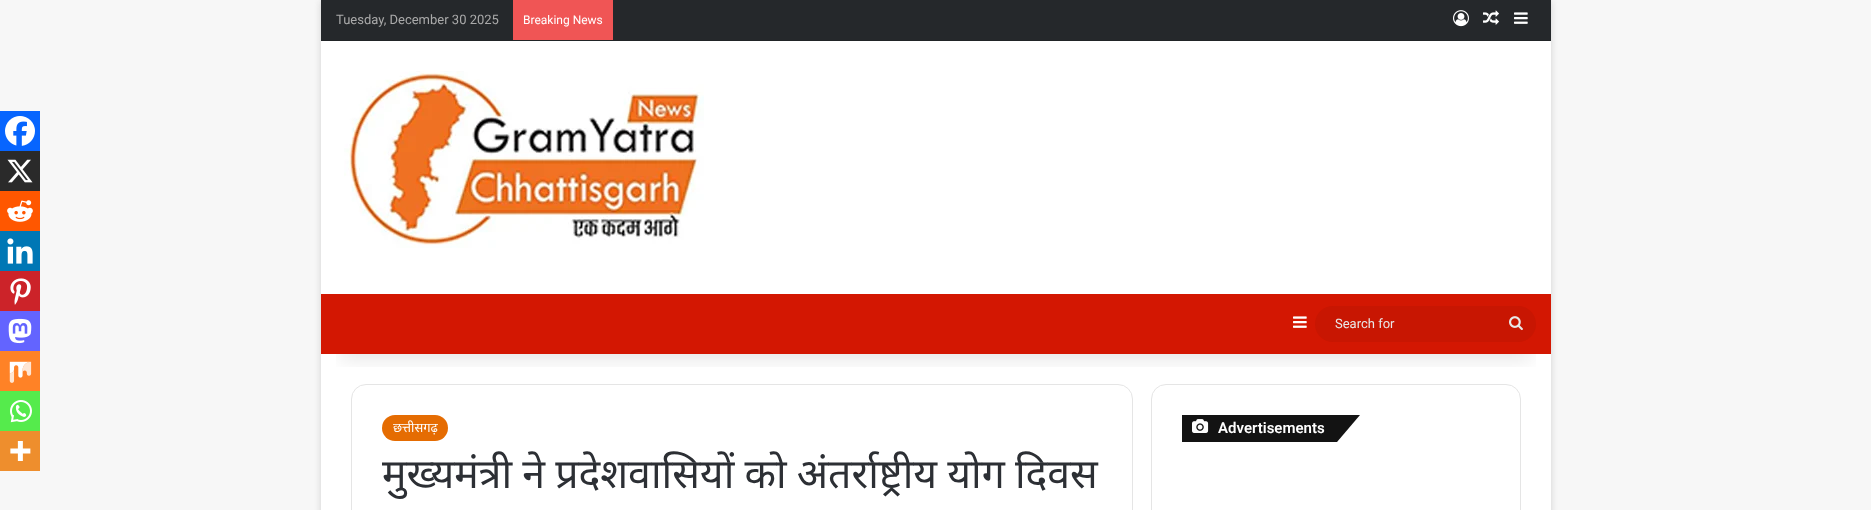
<?xml version="1.0" encoding="UTF-8"?>
<svg xmlns="http://www.w3.org/2000/svg" width="1871" height="510">
    <defs>
        <filter id="blur1" x="-50%" y="-200%" width="200%" height="500%"><feGaussianBlur stdDeviation="3.5"/></filter>
        <clipPath id="clip1"><rect x="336" y="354" width="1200" height="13"/></clipPath>
        <filter id="blur2" x="-50%" y="-200%" width="200%" height="500%"><feGaussianBlur stdDeviation="10"/></filter>
    </defs>
    <rect width="100%" height="100%" fill="#F7F7F7"/>
    <rect x="321" y="1" width="1230" height="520" fill="#ABABAB" fill-opacity="0.5" filter="url(#blur1)"/>
    <rect x="321" y="41" width="1230" height="469" fill="#FFFFFF"/>
    <rect x="351.5" y="384.5" width="781" height="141" rx="14.5" fill="none" stroke="#E5E5E5"/>
    <rect x="1151.5" y="384.5" width="369" height="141" rx="14.5" fill="none" stroke="#E5E5E5"/>
    <g clip-path="url(#clip1)">
        <rect x="341" y="45" width="1190" height="314" fill="#000000" fill-opacity="0.1" filter="url(#blur2)"/>
    </g>
    <rect x="321" y="0" width="1230" height="40" fill="#25282B"/>
    <rect x="321" y="40" width="1230" height="1" fill="#212427"/>
    <text x="336" y="24" font-family="Roboto" font-size="13" fill="#AAAAAA">Tuesday, December 30 2025</text>
    <rect x="513" y="0" width="100" height="40" fill="#F05555"/>
    <text x="523" y="24" font-family="Roboto" font-size="12" fill="#FFFFFF">Breaking News</text>
    <image x="1453" y="10" width="16" height="17" href="img_01.png"/>
    <image x="1483" y="10" width="16" height="15" href="img_02.png"/>
    <image x="1514" y="12" width="14" height="12" href="img_03.png"/>
    <image x="344" y="71" width="360" height="177" href="img_04.png"/>
    <rect x="321" y="294" width="1230" height="60" fill="#D31702"/>
    <image x="1293" y="316" width="14" height="12" href="img_05.png"/>
    <rect x="1315" y="306" width="221" height="36" rx="18" fill="#C81602"/>
    <text x="1335" y="328" font-family="Roboto" font-size="13" fill="#E8E8E8">Search for</text>
    <image x="1509" y="316" width="14" height="15" href="img_06.png"/>
    <rect x="0" y="111" width="40" height="40" fill="#0765FE"/>
    <image x="5" y="116" width="30" height="30" href="img_07.png"/>
    <rect x="0" y="151" width="40" height="40" fill="#2A2A2A"/>
    <image x="7" y="159" width="26" height="24" href="img_08.png"/>
    <rect x="0" y="191" width="40" height="40" fill="#FF5700"/>
    <image x="7" y="200" width="26" height="22" href="img_09.png"/>
    <rect x="0" y="231" width="40" height="40" fill="#0077B5"/>
    <image x="7" y="238" width="26" height="26" href="img_10.png"/>
    <rect x="0" y="271" width="40" height="40" fill="#CC2329"/>
    <image x="10" y="278" width="21" height="27" href="img_11.png"/>
    <rect x="0" y="311" width="40" height="40" fill="#6364FF"/>
    <image x="8" y="318" width="24" height="26" href="img_12.png"/>
    <rect x="0" y="351" width="40" height="40" fill="#FF8226"/>
    <image x="9" y="361" width="23" height="22" href="img_13.png"/>
    <rect x="0" y="391" width="40" height="40" fill="#55EB4C"/>
    <image x="10" y="400" width="22" height="23" href="img_14.png"/>
    <rect x="0" y="431" width="40" height="40" fill="#EE8E2D"/>
    <image x="10" y="441" width="21" height="20" href="img_15.png"/>
    <rect x="382" y="415" width="66" height="26" rx="13" fill="#E56C02"/>
    <text x="393" y="432" font-family="Noto Sans" font-size="13" fill="#FFFFFF">छत्तीसगढ़</text>
    <text x="382" y="488" word-spacing="-0.5" font-family="Noto Sans" font-size="41" fill="#2C2F34">मुख्यमंत्री ने प्रदेशवासियों को अंतर्राष्ट्रीय योग दिवस</text>
    <rect x="1182" y="415" width="71" height="27" fill="#131313"/>
    <path d="M 1253 415 H 1360 L 1337 442 H 1230 Z" fill="#131313"/>
    <image x="1192" y="419" width="17" height="14" href="img_16.png"/>
    <text x="1218" y="433" font-family="Roboto" font-size="15" font-weight="600" fill="#FFFFFF">Advertisements</text>
</svg>
